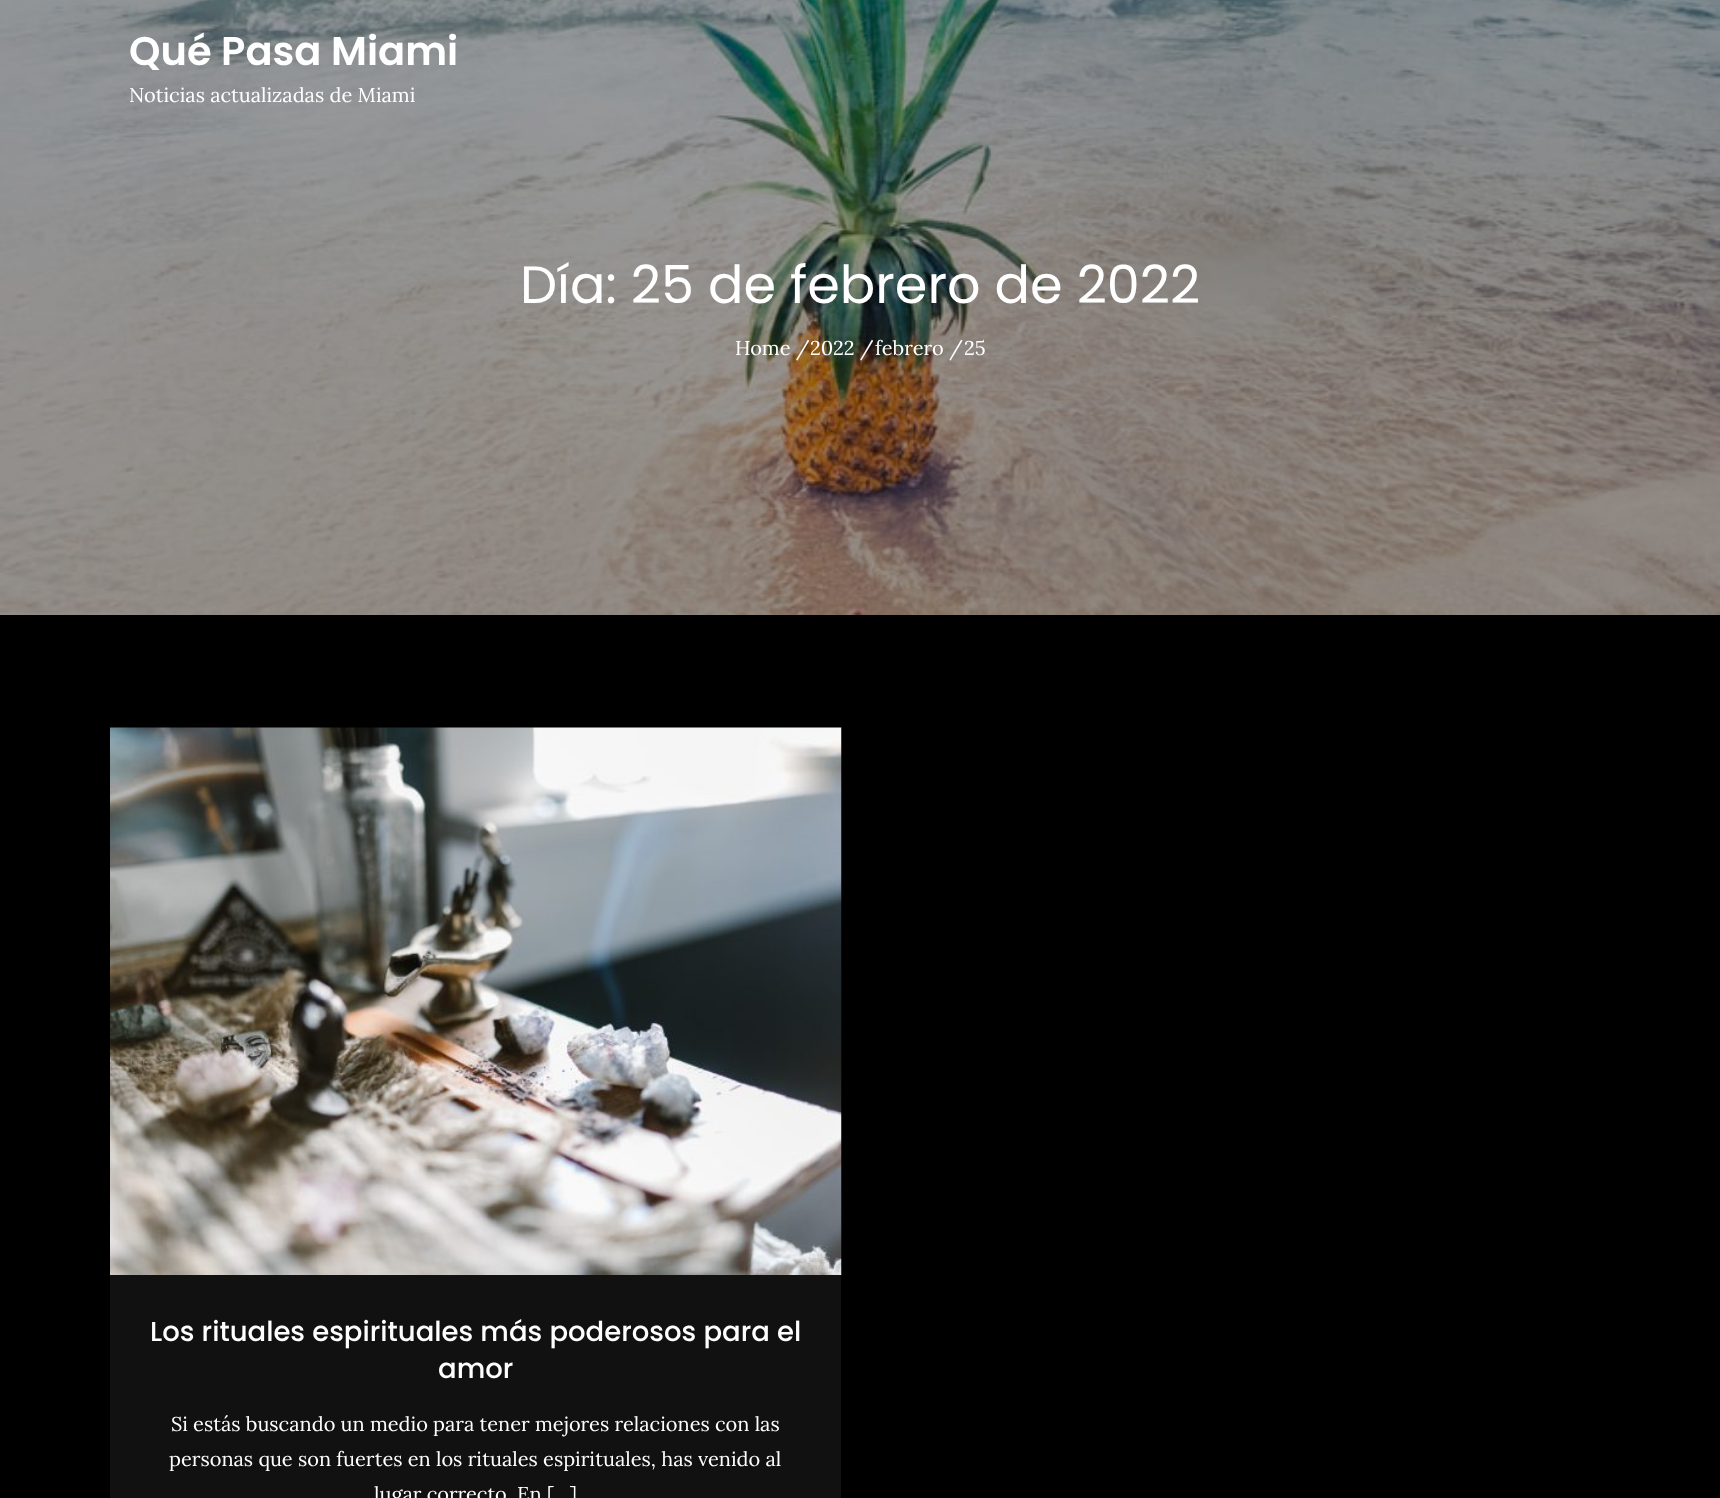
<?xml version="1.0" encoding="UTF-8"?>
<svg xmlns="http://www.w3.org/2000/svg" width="1720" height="1498">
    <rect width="100%" height="100%" fill="#000000"/>
    <image x="0" y="0" width="1720" height="615" href="img_01.png"/>
    <text x="129" y="65" font-family="Poppins" font-size="40" font-weight="600" fill="#FFFFFF">Qué Pasa Miami</text>
    <text x="129" y="102" font-family="Lora" font-size="20" fill="#FFFFFF">Noticias actualizadas de Miami</text>
    <text x="520" y="303" font-family="Poppins" font-size="52.5" fill="#FFFFFF">Día: 25 de febrero de 2022</text>
    <text x="735" y="355" font-family="Lora" font-size="20" fill="#FFFFFF">Home /</text>
    <text x="810" y="355" font-family="Lora" font-size="20" fill="#FFFFFF">2022 /</text>
    <text x="875" y="355" font-family="Lora" font-size="20" fill="#FFFFFF">febrero /</text>
    <text x="964" y="355" font-family="Lora" font-size="20" fill="#FFFFFF">25</text>
    <rect x="110" y="1275" width="731" height="223" fill="#111111"/>
    <image x="110" y="727" width="732" height="548" href="img_02.png"/>
    <text x="150" y="1341" font-family="Poppins" font-size="27.5" font-weight="500" fill="#FFFFFF">Los rituales espirituales más poderosos para el</text>
    <text x="438" y="1378" font-family="Poppins" font-size="27.5" font-weight="500" fill="#FFFFFF">amor</text>
    <text x="171" y="1431" font-family="Lora" font-size="20" fill="#FFFFFF">Si estás buscando un medio para tener mejores relaciones con las</text>
    <text x="169" y="1466" font-family="Lora" font-size="20" fill="#FFFFFF">personas que son fuertes en los rituales espirituales, has venido al</text>
    <text x="374" y="1501" font-family="Lora" font-size="20" fill="#FFFFFF">lugar correcto. En […]</text>
</svg>
